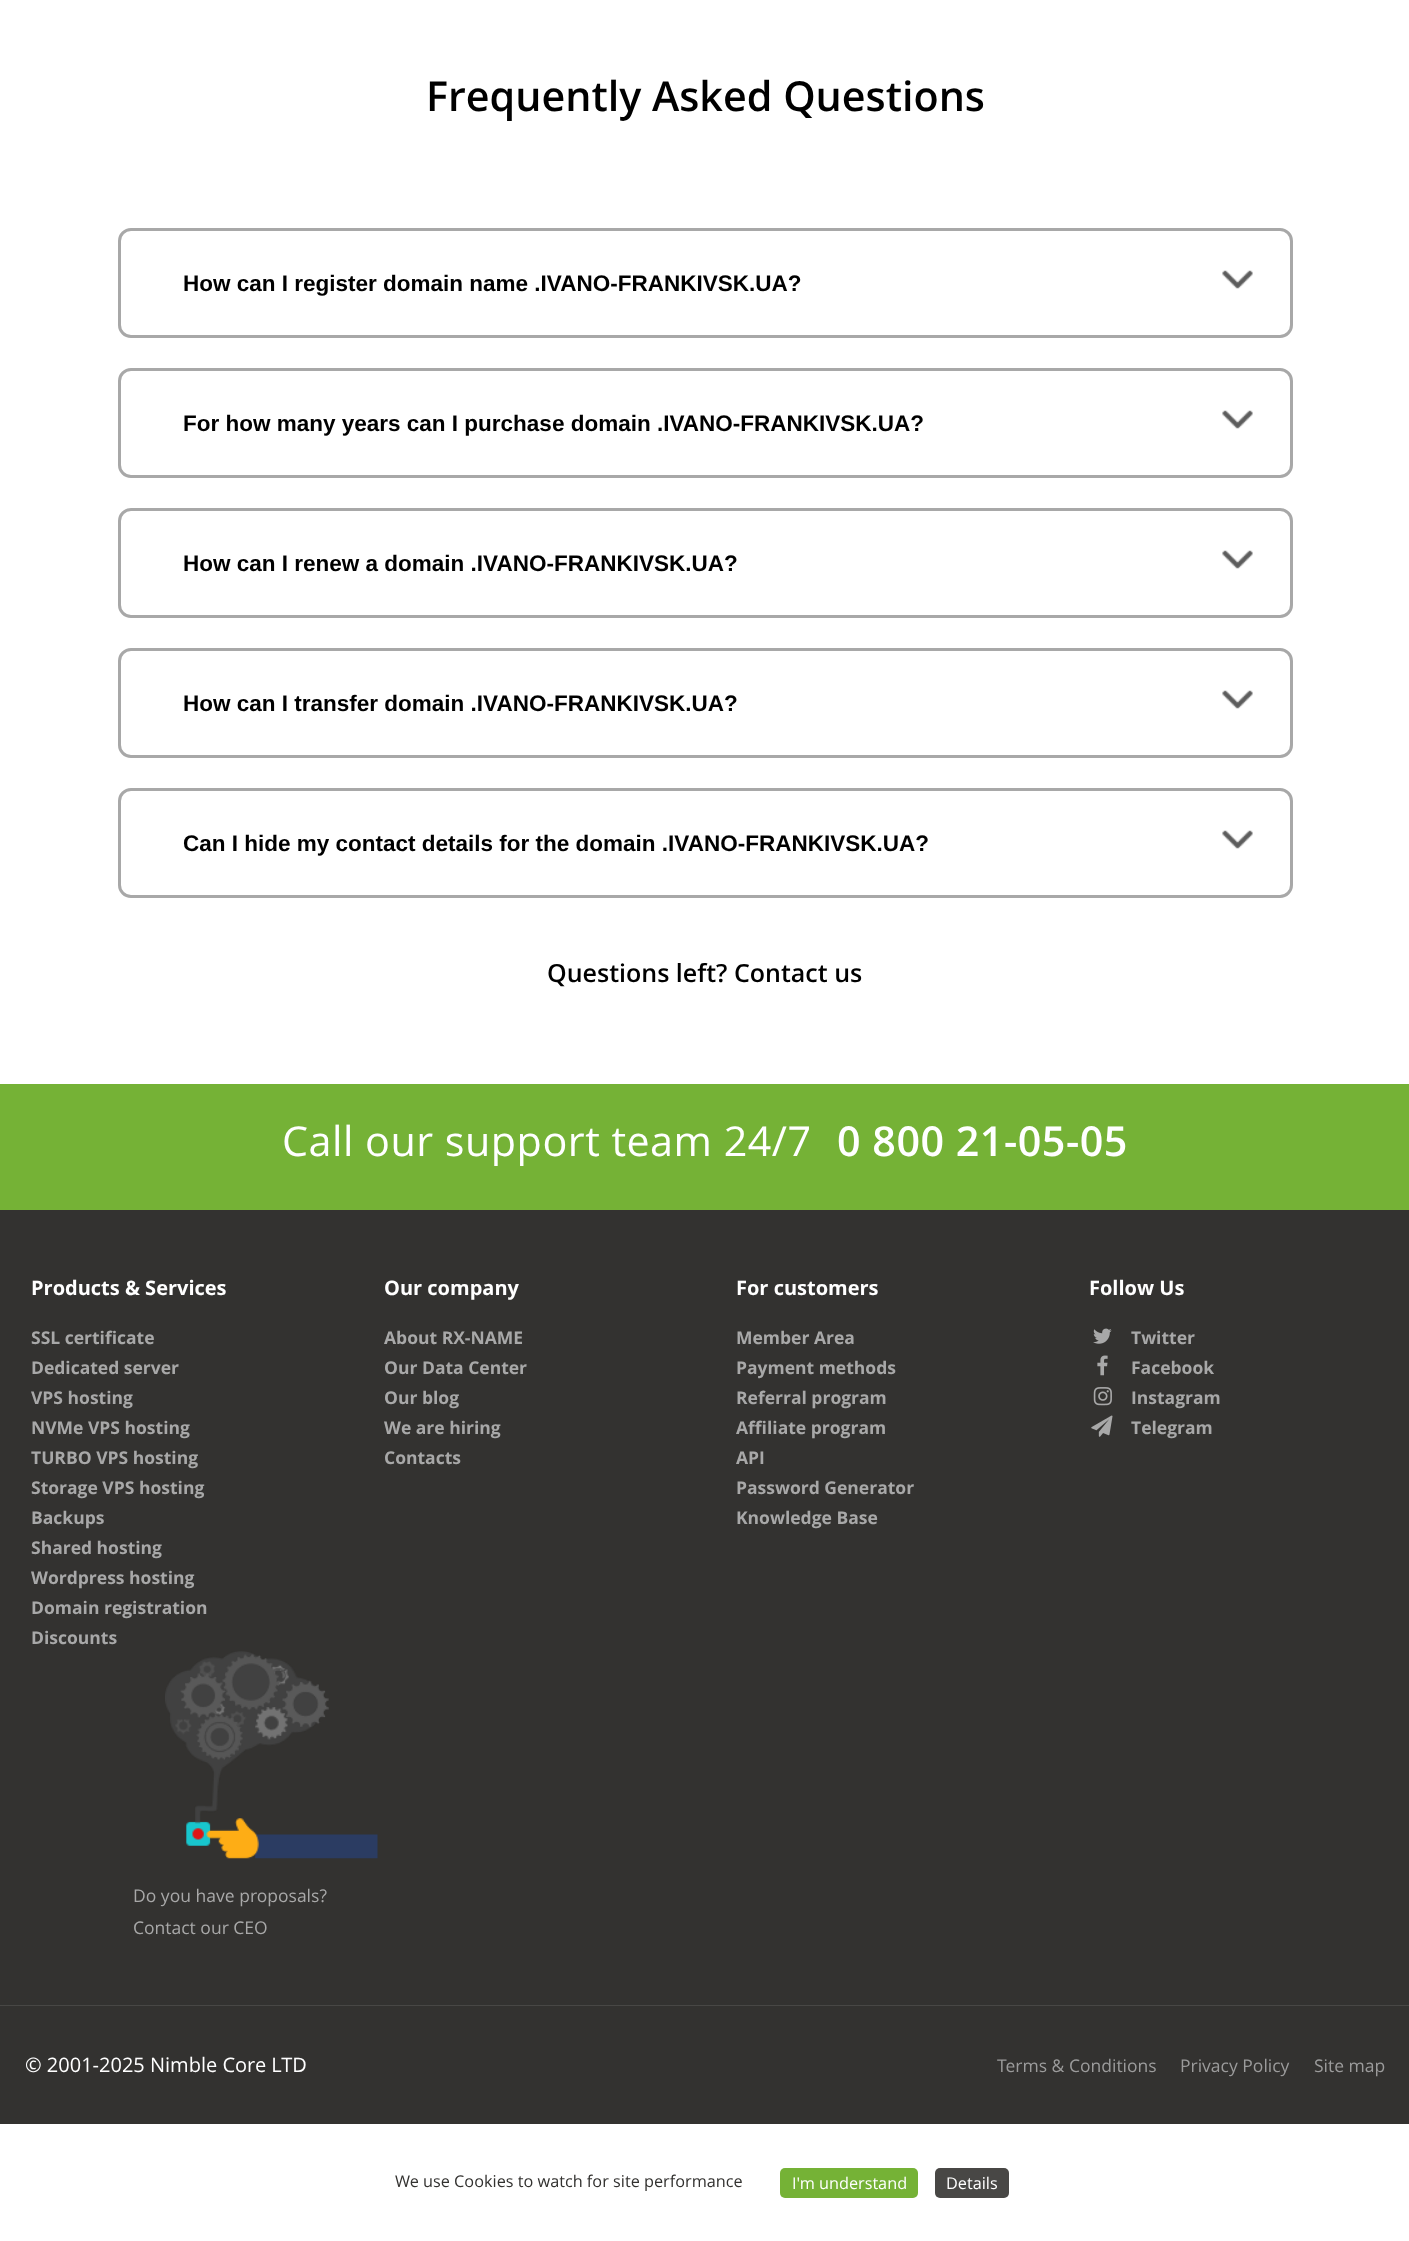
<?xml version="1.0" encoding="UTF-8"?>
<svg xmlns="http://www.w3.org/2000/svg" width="1409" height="2241">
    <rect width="100%" height="100%" fill="#FFFFFF"/>
    <text x="426" y="111" font-family="Open Sans" font-size="41.25" font-weight="600" fill="#000000">Frequently Asked Questions</text>
    <rect x="119.5" y="229.5" width="1172" height="107" rx="11.5" fill="none" stroke="#A8A8A8" stroke-width="3"/>
    <text x="183" y="291" font-family="Liberation Sans" font-size="22.5" font-weight="700" fill="#000000">How can I register domain name .IVANO-FRANKIVSK.UA?</text>
    <image x="1222" y="270" width="31" height="19" href="img_01.png"/>
    <rect x="119.5" y="369.5" width="1172" height="107" rx="11.5" fill="none" stroke="#A8A8A8" stroke-width="3"/>
    <text x="183" y="431" font-family="Liberation Sans" font-size="22.5" font-weight="700" fill="#000000">For how many years can I purchase domain .IVANO-FRANKIVSK.UA?</text>
    <image x="1222" y="410" width="31" height="19" href="img_01.png"/>
    <rect x="119.5" y="509.5" width="1172" height="107" rx="11.5" fill="none" stroke="#A8A8A8" stroke-width="3"/>
    <text x="183" y="571" font-family="Liberation Sans" font-size="22.5" font-weight="700" fill="#000000">How can I renew a domain .IVANO-FRANKIVSK.UA?</text>
    <image x="1222" y="550" width="31" height="19" href="img_01.png"/>
    <rect x="119.5" y="649.5" width="1172" height="107" rx="11.5" fill="none" stroke="#A8A8A8" stroke-width="3"/>
    <text x="183" y="711" font-family="Liberation Sans" font-size="22.5" font-weight="700" fill="#000000">How can I transfer domain .IVANO-FRANKIVSK.UA?</text>
    <image x="1222" y="690" width="31" height="19" href="img_01.png"/>
    <rect x="119.5" y="789.5" width="1172" height="107" rx="11.5" fill="none" stroke="#A8A8A8" stroke-width="3"/>
    <text x="183" y="851" font-family="Liberation Sans" font-size="22.5" font-weight="700" fill="#000000">Can I hide my contact details for the domain .IVANO-FRANKIVSK.UA?</text>
    <image x="1222" y="830" width="31" height="19" href="img_01.png"/>
    <text x="547" y="982" font-family="Open Sans" font-size="25" font-weight="600" fill="#000000">Questions left? Contact us</text>
    <rect x="0" y="1210" width="1409" height="914" fill="#333230"/>
    <rect x="0" y="1084" width="1409" height="126" fill="#75B236"/>
    <text x="282" y="1156" font-family="Open Sans" font-size="41.25" letter-spacing="0.5" fill="#FFFFFF">Call our support team 24/7</text>
    <text x="837" y="1156" font-family="Open Sans" font-size="41.25" font-weight="600" letter-spacing="0.5" fill="#FFFFFF">0 800 21-05-05</text>
    <rect x="0" y="2005" width="1409" height="1" fill="#484745"/>
    <text x="31" y="1295" font-family="Open Sans" font-size="20" font-weight="700" fill="#FFFFFF">Products &amp; Services</text>
    <text font-family="Open Sans" font-size="17.5" font-weight="700" fill="#A8A8A8">
        <tspan x="31" y="1344">SSL certificate</tspan>
        <tspan x="31" y="1374">Dedicated server</tspan>
        <tspan x="31" y="1404">VPS hosting</tspan>
        <tspan x="31" y="1434">NVMe VPS hosting</tspan>
        <tspan x="31" y="1464">TURBO VPS hosting</tspan>
        <tspan x="31" y="1494">Storage VPS hosting</tspan>
        <tspan x="31" y="1524">Backups</tspan>
        <tspan x="31" y="1554">Shared hosting</tspan>
        <tspan x="31" y="1584">Wordpress hosting</tspan>
        <tspan x="31" y="1614">Domain registration</tspan>
        <tspan x="31" y="1644">Discounts</tspan>
    </text>
    <text x="384" y="1295" font-family="Open Sans" font-size="20" font-weight="700" fill="#FFFFFF">Our company</text>
    <text font-family="Open Sans" font-size="17.5" font-weight="700" fill="#A8A8A8">
        <tspan x="384" y="1344">About RX-NAME</tspan>
        <tspan x="384" y="1374">Our Data Center</tspan>
        <tspan x="384" y="1404">Our blog</tspan>
        <tspan x="384" y="1434">We are hiring</tspan>
        <tspan x="384" y="1464">Contacts</tspan>
    </text>
    <text x="736" y="1295" font-family="Open Sans" font-size="20" font-weight="700" fill="#FFFFFF">For customers</text>
    <text font-family="Open Sans" font-size="17.5" font-weight="700" fill="#A8A8A8">
        <tspan x="736" y="1344">Member Area</tspan>
        <tspan x="736" y="1374">Payment methods</tspan>
        <tspan x="736" y="1404">Referral program</tspan>
        <tspan x="736" y="1434">Affiliate program</tspan>
        <tspan x="736" y="1464">API</tspan>
        <tspan x="736" y="1494">Password Generator</tspan>
        <tspan x="736" y="1524">Knowledge Base</tspan>
    </text>
    <text x="1089" y="1295" font-family="Open Sans" font-size="20" font-weight="700" fill="#FFFFFF">Follow Us</text>
    <image x="1093" y="1328" width="19" height="16" href="img_02.png"/>
    <text x="1131" y="1344" font-family="Open Sans" font-size="17.5" font-weight="700" fill="#A8A8A8">Twitter</text>
    <image x="1097" y="1355" width="11" height="21" href="img_03.png"/>
    <text x="1131" y="1374" font-family="Open Sans" font-size="17.5" font-weight="700" fill="#A8A8A8">Facebook</text>
    <image x="1093" y="1387" width="19" height="19" href="img_04.png"/>
    <text x="1131" y="1404" font-family="Open Sans" font-size="17.5" font-weight="700" fill="#A8A8A8">Instagram</text>
    <image x="1091" y="1415" width="22" height="22" href="img_05.png"/>
    <text x="1131" y="1434" font-family="Open Sans" font-size="17.5" font-weight="700" fill="#A8A8A8">Telegram</text>
    <image x="165" y="1651" width="213" height="208" href="img_06.png"/>
    <image x="180" y="1673" width="46" height="45" href="img_07.png"/>
    <image x="222" y="1654" width="57" height="56" href="img_08.png"/>
    <image x="282" y="1680" width="47" height="47" href="img_09.png"/>
    <image x="196" y="1714" width="47" height="46" href="img_10.png"/>
    <image x="255" y="1707" width="33" height="33" href="img_11.png"/>
    <image x="206" y="1818" width="53" height="41" href="img_12.png"/>
    <text font-family="Open Sans" font-size="17.5" fill="#A8A8A8">
        <tspan x="133" y="1902">Do you have proposals?</tspan>
        <tspan x="133" y="1934">Contact our CEO</tspan>
    </text>
    <text x="25" y="2072" font-family="Open Sans" font-size="20" fill="#FFFFFF">© 2001-2025 Nimble Core LTD</text>
    <text x="997" y="2072" font-family="Open Sans" font-size="17.5" fill="#9B9B9B">Terms &amp; Conditions</text>
    <text x="1180" y="2072" font-family="Open Sans" font-size="17.5" fill="#9B9B9B">Privacy Policy</text>
    <text x="1314" y="2072" font-family="Open Sans" font-size="17.5" fill="#9B9B9B">Site map</text>
    <text x="395" y="2187" font-family="Open Sans" font-size="16.25" fill="#333230">We use Cookies to watch for site performance</text>
    <rect x="780" y="2168" width="138" height="30" rx="5" fill="#75B236"/>
    <text x="792" y="2189" font-family="Open Sans" font-size="16.25" fill="#FFFFFF">I'm understand</text>
    <rect x="935" y="2168" width="74" height="30" rx="5" fill="#484745"/>
    <text x="946" y="2189" font-family="Open Sans" font-size="16.25" fill="#FFFFFF">Details</text>
</svg>
